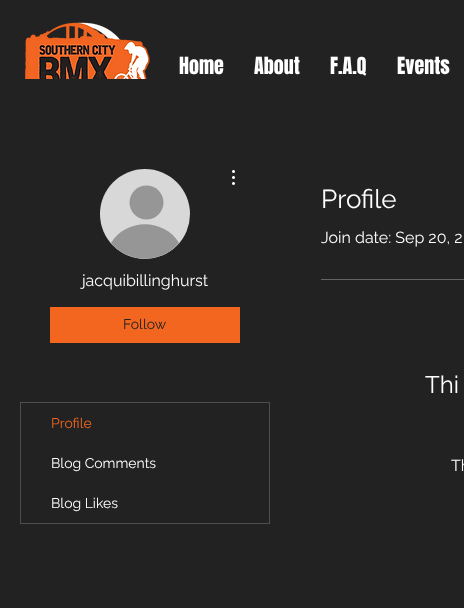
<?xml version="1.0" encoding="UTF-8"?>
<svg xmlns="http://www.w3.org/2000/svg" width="464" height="608">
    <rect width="100%" height="100%" fill="#222222"/>
    <image x="25" y="22" width="125" height="57" href="img_01.png"/>
    <text x="179" y="74" font-family="Anton" font-size="20" fill="#FFFFFF">Home</text>
    <text x="254" y="74" font-family="Anton" font-size="20" fill="#FFFFFF">About</text>
    <text x="330" y="74" font-family="Anton" font-size="20" fill="#FFFFFF">F.A.Q</text>
    <text x="397" y="74" font-family="Anton" font-size="20" fill="#FFFFFF">Events</text>
    <circle cx="145" cy="214" r="45" fill="#D8D8D8"/>
    <circle cx="146.5" cy="202.5" r="17" fill="#969696"/>
    <path d="M 179 243 C 161 264 129 264 111 243 C 126 218 164 218 179 243 Z" fill="#969696"/>
    <image x="232" y="170" width="3" height="15" href="img_02.png"/>
    <text x="82" y="286" font-family="Raleway" font-size="16" fill="#FFFFFF">jacquibillinghurst</text>
    <rect x="50" y="307" width="190" height="36" fill="#F36620"/>
    <text x="123" y="329" font-family="Raleway" font-size="14" fill="#222222">Follow</text>
    <rect x="20.5" y="402.5" width="249" height="121" fill="none" stroke="#4E4E4E"/>
    <text x="51" y="428" font-family="Raleway" font-size="14" fill="#F36620">Profile</text>
    <text x="51" y="468" font-family="Raleway" font-size="14" fill="#FFFFFF">Blog Comments</text>
    <text x="51" y="508" font-family="Raleway" font-size="14" fill="#FFFFFF">Blog Likes</text>
    <text x="321" y="208" font-family="Raleway" font-size="26" fill="#FFFFFF">Profile</text>
    <text x="321" y="243" font-family="Raleway" font-size="16" fill="#FFFFFF">Join date: Sep 20, 2</text>
    <rect x="321" y="279" width="143" height="1" fill="#646464"/>
    <text x="425" y="393" font-family="Raleway" font-size="24" fill="#FFFFFF">Thi</text>
    <text x="451" y="471" font-family="Raleway" font-size="16" fill="#FFFFFF">Th</text>
</svg>
